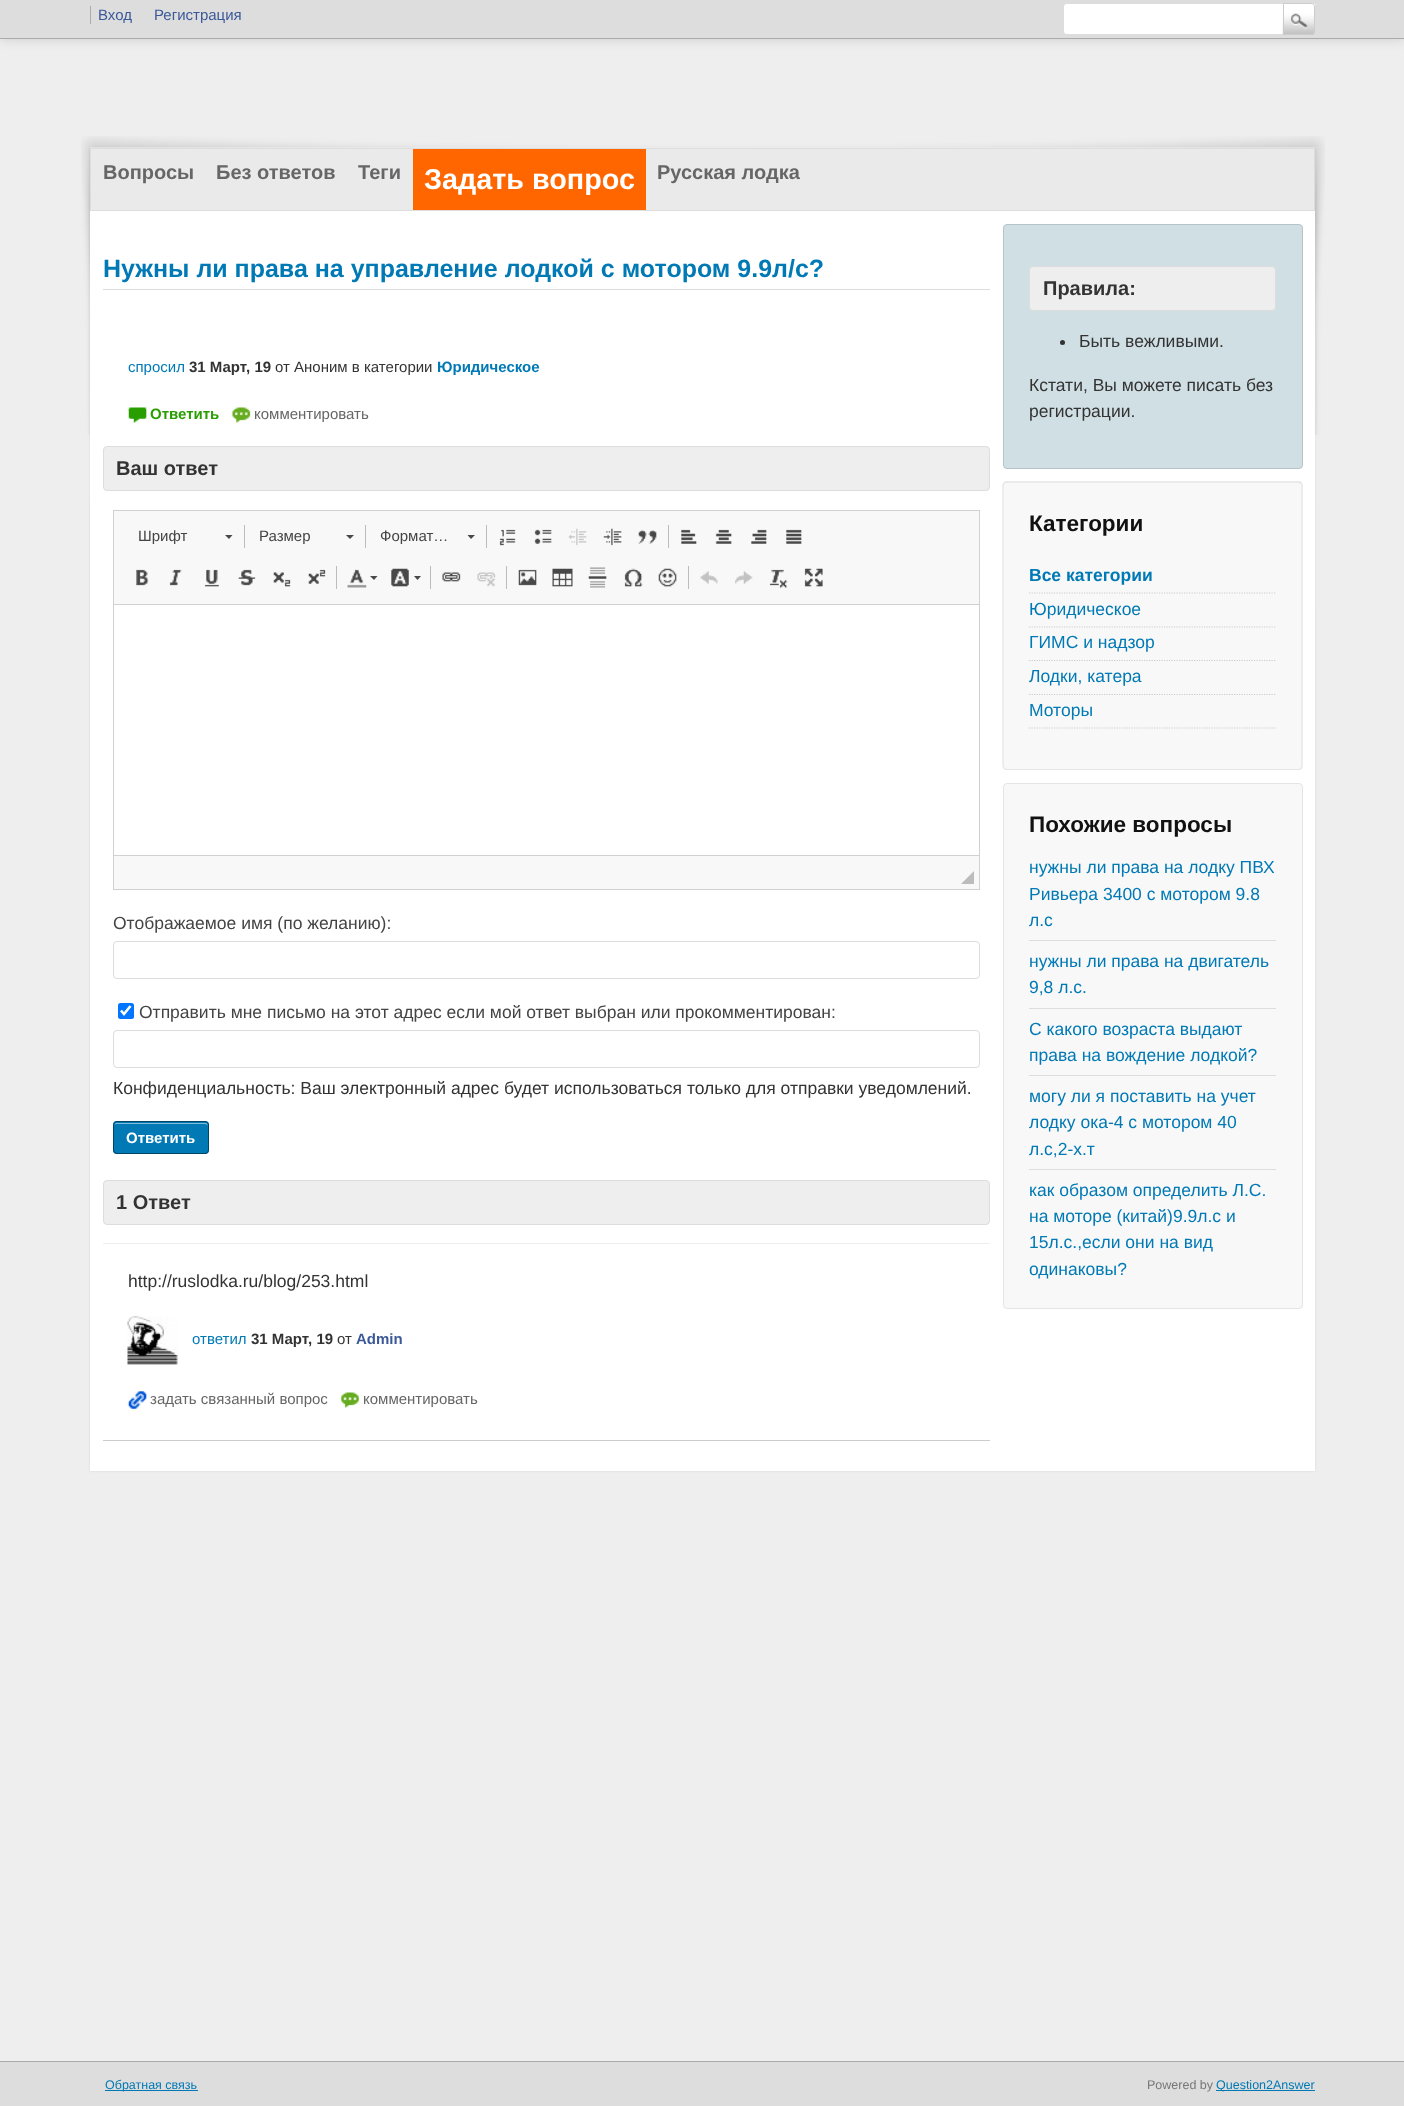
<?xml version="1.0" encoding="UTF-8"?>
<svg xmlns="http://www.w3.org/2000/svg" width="1404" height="2106">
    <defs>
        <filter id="blur1" x="-50%" y="-200%" width="200%" height="500%"><feGaussianBlur stdDeviation="6"/></filter>
        <filter id="blur2" x="-50%" y="-200%" width="200%" height="500%"><feGaussianBlur stdDeviation="1"/></filter>
    </defs>
    <rect width="100%" height="100%" fill="#EEEEEE"/>
    <rect x="0" y="0" width="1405" height="39" fill="#000000" fill-opacity="0.15" filter="url(#blur1)"/>
    <rect x="0" y="0" width="1404" height="38" fill="#DDDDDD"/>
    <rect x="0" y="38" width="1404" height="1" fill="#AAAAAA"/>
    <text x="98" y="20" font-family="Liberation Sans" font-size="15" fill="#3B5998">Вход</text>
    <rect x="90" y="6" width="1" height="18" fill="#AAAAAA"/>
    <text x="154" y="20" font-family="Liberation Sans" font-size="15" fill="#3B5998">Регистрация</text>
    <path d="M 1067 3.5 H 1283.5 V 34.5 H 1067 C 1065 34.5 1063.5 33 1063.5 31 V 7 C 1063.5 5 1065 3.5 1067 3.5 Z" fill="#FFFFFF" stroke="#DDDDDD"/>
    <image x="1282" y="3" width="33" height="32" href="img_01.png"/>
    <path d="M 1283.5 3.5 H 1311 C 1313 3.5 1314.5 5 1314.5 7 V 31 C 1314.5 33 1313 34.5 1311 34.5 H 1283.5 Z" fill="none" stroke="#CCCCCC"/>
    <image x="81" y="136" width="1244" height="522" href="img_02.png"/>
    <rect x="90" y="148" width="1225" height="1323" fill="#000000" fill-opacity="0.1" filter="url(#blur2)"/>
    <rect x="90" y="211" width="1225" height="1260" fill="#FFFFFF"/>
    <rect x="90.5" y="148.5" width="1224" height="62" fill="#EAEAEA" stroke="#DDDDDD"/>
    <text x="103" y="179" font-family="Liberation Sans" font-size="20" font-weight="700" fill="#666666">Вопросы</text>
    <text x="216" y="179" font-family="Liberation Sans" font-size="20" font-weight="700" fill="#666666">Без ответов</text>
    <text x="358" y="179" font-family="Liberation Sans" font-size="20" font-weight="700" fill="#666666">Теги</text>
    <rect x="413" y="149" width="233" height="61" fill="#FF6600"/>
    <text x="424" y="189" font-family="Liberation Sans" font-size="28.75" font-weight="700" fill="#FFFFFF">Задать вопрос</text>
    <text x="657" y="179" font-family="Liberation Sans" font-size="20" font-weight="700" fill="#666666">Русская лодка</text>
    <rect x="103" y="289" width="887" height="1" fill="#DDDDDD"/>
    <text x="103" y="277" font-family="Liberation Sans" font-size="25" font-weight="700" fill="#0179B5">Нужны ли права на управление лодкой с мотором 9.9л/с?</text>
    <text x="128" y="372" font-family="Liberation Sans" font-size="15" fill="#0179B5">спросил</text>
    <text x="189" y="372" font-family="Liberation Sans" font-size="15" font-weight="700" fill="#333333">31 Март, 19</text>
    <text x="275" y="372" font-family="Liberation Sans" font-size="15" fill="#333333">от Аноним в категории</text>
    <text x="437" y="372" font-family="Liberation Sans" font-size="15" font-weight="700" fill="#0179B5">Юридическое</text>
    <image x="127" y="407" width="20" height="16" href="img_03.png"/>
    <text x="150" y="419" font-family="Liberation Sans" font-size="15" font-weight="700" fill="#289E00">Ответить</text>
    <image x="231" y="407" width="20" height="16" href="img_04.png"/>
    <text x="254" y="419" font-family="Liberation Sans" font-size="15" fill="#666666">комментировать</text>
    <rect x="103.5" y="446.5" width="886" height="44" rx="3.5" fill="#EEEEEE" stroke="#DDDDDD"/>
    <text x="116" y="475" font-family="Liberation Sans" font-size="20" font-weight="700" fill="#333333">Ваш ответ</text>
    <rect x="113.5" y="510.5" width="866" height="379" fill="none" stroke="#D1D1D1"/>
    <rect x="114" y="511" width="865" height="93" fill="#F8F8F8"/>
    <rect x="114" y="604" width="865" height="1" fill="#D1D1D1"/>
    <text x="138" y="541" font-family="Liberation Sans" font-size="15" fill="#444444">Шрифт</text>
    <path d="M 225 535 H 232.5 L 229 539 Z" fill="#484848"/>
    <rect x="244" y="525" width="1" height="23" fill="#BCBCBC"/>
    <text x="259" y="541" font-family="Liberation Sans" font-size="15" fill="#444444">Размер</text>
    <path d="M 346 535 H 354 L 350 539 Z" fill="#484848"/>
    <rect x="365" y="525" width="1" height="23" fill="#BCBCBC"/>
    <text x="380" y="541" font-family="Liberation Sans" font-size="15" fill="#444444">Формат…</text>
    <path d="M 467.5 535 H 475 L 471 539 Z" fill="#484848"/>
    <rect x="486" y="525" width="1" height="23" fill="#BCBCBC"/>
    <image x="499" y="529" width="17" height="17" href="img_05.png"/>
    <image x="534" y="529" width="18" height="15" href="img_06.png"/>
    <image x="568" y="528" width="19" height="18" href="img_07.png"/>
    <image x="603" y="528" width="19" height="18" href="img_08.png"/>
    <image x="638" y="530" width="19" height="14" href="img_09.png"/>
    <rect x="668" y="525" width="1" height="23" fill="#BCBCBC"/>
    <image x="681" y="529" width="16" height="15" href="img_10.png"/>
    <image x="715" y="529" width="17" height="15" href="img_11.png"/>
    <image x="751" y="529" width="16" height="15" href="img_12.png"/>
    <image x="786" y="529" width="16" height="15" href="img_13.png"/>
    <image x="136" y="569" width="13" height="17" href="img_14.png"/>
    <image x="169" y="569" width="13" height="17" href="img_15.png"/>
    <image x="204" y="569" width="15" height="18" href="img_16.png"/>
    <image x="238" y="569" width="18" height="17" href="img_17.png"/>
    <image x="273" y="572" width="18" height="15" href="img_18.png"/>
    <image x="308" y="569" width="18" height="15" href="img_19.png"/>
    <rect x="336" y="566" width="1" height="23" fill="#BCBCBC"/>
    <image x="347" y="569" width="20" height="19" href="img_20.png"/>
    <path d="M 370 576 H 377.5 L 374 580 Z" fill="#484848"/>
    <image x="391" y="568" width="18" height="19" href="img_21.png"/>
    <path d="M 414 576 H 421 L 417.5 580 Z" fill="#484848"/>
    <rect x="430" y="566" width="1" height="23" fill="#BCBCBC"/>
    <image x="442" y="572" width="19" height="10" href="img_22.png"/>
    <image x="477" y="572" width="19" height="15" href="img_23.png"/>
    <rect x="506" y="566" width="1" height="23" fill="#BCBCBC"/>
    <image x="518" y="569" width="19" height="17" href="img_24.png"/>
    <image x="552" y="568" width="21" height="19" href="img_25.png"/>
    <image x="588" y="567" width="19" height="21" href="img_26.png"/>
    <image x="624" y="568" width="19" height="19" href="img_27.png"/>
    <image x="658" y="568" width="19" height="19" href="img_28.png"/>
    <rect x="688" y="566" width="1" height="23" fill="#BCBCBC"/>
    <image x="700" y="571" width="18" height="13" href="img_29.png"/>
    <image x="735" y="571" width="18" height="13" href="img_30.png"/>
    <image x="769" y="569" width="19" height="19" href="img_31.png"/>
    <image x="804" y="568" width="19" height="19" href="img_32.png"/>
    <rect x="114" y="856" width="865" height="33" fill="#F8F8F8"/>
    <rect x="114" y="855" width="865" height="1" fill="#D1D1D1"/>
    <path d="M 974 871 V 884 H 961 Z" fill="#BCBCBC"/>
    <text x="113" y="929" font-family="Liberation Sans" font-size="17.5" fill="#444444">Отображаемое имя (по желанию):</text>
    <rect x="113.5" y="941.5" width="866" height="37" rx="3.5" fill="none" stroke="#DDDDDD"/>
    <rect x="118" y="1003" width="16" height="16" rx="2.5" fill="#0075FF"/>
    <path d="M 121 1010.5 L 124 1014 L 130.5 1006" fill="none" stroke="#FFFFFF" stroke-width="2.6"/>
    <text x="139" y="1018" font-family="Liberation Sans" font-size="17.5" fill="#444444">Отправить мне письмо на этот адрес если мой ответ выбран или прокомментирован:</text>
    <rect x="113.5" y="1030.5" width="866" height="37" rx="3.5" fill="none" stroke="#DDDDDD"/>
    <text x="113" y="1094" font-family="Liberation Sans" font-size="17.5" fill="#333333">Конфиденциальность: Ваш электронный адрес будет использоваться только для отправки уведомлений.</text>
    <rect x="113" y="1121" width="96" height="33" rx="4" fill="#0179B5"/>
    <path d="M 116 1124 H 205 C 206 1124 208 1125 208 1126 C 208 1125 207 1123 206 1123 H 116 C 115 1123 114 1125 114 1126 C 114 1125 115 1124 116 1124 Z" fill="#80BCDA"/>
    <rect x="113.5" y="1121.5" width="95" height="32" rx="3.5" fill="none" stroke="#004566"/>
    <text x="126" y="1143" font-family="Liberation Sans" font-size="15" font-weight="700" fill="#FFFFFF">Ответить</text>
    <rect x="103.5" y="1180.5" width="886" height="44" rx="3.5" fill="#EEEEEE" stroke="#DDDDDD"/>
    <text x="116" y="1209" font-family="Liberation Sans" font-size="20" font-weight="700" fill="#333333">1 Ответ</text>
    <rect x="103" y="1243" width="887" height="1" fill="#EEEEEE"/>
    <rect x="103" y="1440" width="887" height="1" fill="#CCCCCC"/>
    <text x="128" y="1287" font-family="Liberation Sans" font-size="17.5" fill="#333333">http://ruslodka.ru/blog/253.html</text>
    <image x="127" y="1316" width="51" height="49" href="img_33.png"/>
    <text x="192" y="1344" font-family="Liberation Sans" font-size="15" fill="#0179B5">ответил</text>
    <text x="251" y="1344" font-family="Liberation Sans" font-size="15" font-weight="700" fill="#333333">31 Март, 19</text>
    <text x="337" y="1344" font-family="Liberation Sans" font-size="15" fill="#333333">от</text>
    <text x="356" y="1344" font-family="Liberation Sans" font-size="15" font-weight="700" fill="#3B5998">Admin</text>
    <image x="127" y="1391" width="20" height="19" href="img_34.png"/>
    <text x="150" y="1404" font-family="Liberation Sans" font-size="15" fill="#666666">задать связанный вопрос</text>
    <image x="340" y="1392" width="19" height="16" href="img_35.png"/>
    <text x="363" y="1404" font-family="Liberation Sans" font-size="15" fill="#666666">комментировать</text>
    <rect x="1003.5" y="224.5" width="299" height="244" rx="3.5" fill="#D0DFE4" stroke="#B6C4C8"/>
    <rect x="1029.5" y="266.5" width="246" height="44" rx="3.5" fill="#EEEEEE" stroke="#DDDDDD"/>
    <text x="1043" y="295" font-family="Liberation Sans" font-size="20" font-weight="700" fill="#333333">Правила:</text>
    <circle cx="1062.5" cy="342.5" r="2.5" fill="#333333"/>
    <text x="1079" y="347" font-family="Liberation Sans" font-size="17.5" fill="#333333">Быть вежливыми.</text>
    <text font-family="Liberation Sans" font-size="17.5" fill="#333333">
        <tspan x="1029" y="391">Кстати, Вы можете писать без</tspan>
        <tspan x="1029" y="417">регистрации.</tspan>
    </text>
    <rect x="1003" y="481" width="300" height="289" rx="4" fill="#F8F8F8"/>
    <path d="M 1004 483 L 1006 482 H 1299 L 1301 483" fill="none" stroke="#DDDDDD" stroke-width="1.2"/>
    <path d="M 1301 483 L 1302 485 V 766 L 1301 768.5 L 1299 769.5 H 1006 L 1004 768.5 L 1003 766 V 485 L 1004 483" fill="none" stroke="#E5E5E5" stroke-width="1.2"/>
    <text x="1029" y="531" font-family="Liberation Sans" font-size="22.5" font-weight="700" fill="#111111">Категории</text>
    <path d="M 1029 593 H 1276" fill="none" stroke="#CCCCCC" stroke-width="1.2" stroke-dasharray="1.25 1.25"/>
    <text x="1029" y="581" font-family="Liberation Sans" font-size="17.5" font-weight="700" fill="#0179B5">Все категории</text>
    <path d="M 1029 627 H 1276" fill="none" stroke="#CCCCCC" stroke-width="1.2" stroke-dasharray="1.25 1.25"/>
    <text x="1029" y="615" font-family="Liberation Sans" font-size="17.5" fill="#0179B5">Юридическое</text>
    <path d="M 1029 660.5 H 1276" fill="none" stroke="#CCCCCC" stroke-width="1.2" stroke-dasharray="1.25 1.25"/>
    <text x="1029" y="648" font-family="Liberation Sans" font-size="17.5" fill="#0179B5">ГИМС и надзор</text>
    <path d="M 1029 694.5 H 1276" fill="none" stroke="#CCCCCC" stroke-width="1.2" stroke-dasharray="1.25 1.25"/>
    <text x="1029" y="682" font-family="Liberation Sans" font-size="17.5" fill="#0179B5">Лодки, катера</text>
    <path d="M 1029 728 H 1276" fill="none" stroke="#CCCCCC" stroke-width="1.2" stroke-dasharray="1.25 1.25"/>
    <text x="1029" y="716" font-family="Liberation Sans" font-size="17.5" fill="#0179B5">Моторы</text>
    <rect x="1003.5" y="783.5" width="299" height="525" rx="3.5" fill="#F8F8F8" stroke="#E5E5E5"/>
    <text x="1029" y="832" font-family="Liberation Sans" font-size="22.5" font-weight="700" fill="#111111">Похожие вопросы</text>
    <rect x="1029" y="940" width="247" height="1" fill="#DDDDDD"/>
    <text font-family="Liberation Sans" font-size="17.5" fill="#0179B5">
        <tspan x="1029" y="873">нужны ли права на лодку ПВХ</tspan>
        <tspan x="1029" y="900">Ривьера 3400 с мотором 9.8</tspan>
        <tspan x="1029" y="926">л.с</tspan>
    </text>
    <rect x="1029" y="1008" width="247" height="1" fill="#DDDDDD"/>
    <text font-family="Liberation Sans" font-size="17.5" fill="#0179B5">
        <tspan x="1029" y="967">нужны ли права на двигатель</tspan>
        <tspan x="1029" y="993">9,8 л.с.</tspan>
    </text>
    <rect x="1029" y="1075" width="247" height="1" fill="#DDDDDD"/>
    <text font-family="Liberation Sans" font-size="17.5" fill="#0179B5">
        <tspan x="1029" y="1035">С какого возраста выдают</tspan>
        <tspan x="1029" y="1061">права на вождение лодкой?</tspan>
    </text>
    <rect x="1029" y="1169" width="247" height="1" fill="#DDDDDD"/>
    <text font-family="Liberation Sans" font-size="17.5" fill="#0179B5">
        <tspan x="1029" y="1102">могу ли я поставить на учет</tspan>
        <tspan x="1029" y="1128">лодку ока-4 с мотором 40</tspan>
        <tspan x="1029" y="1155">л.с,2-х.т</tspan>
    </text>
    <text font-family="Liberation Sans" font-size="17.5" fill="#0179B5">
        <tspan x="1029" y="1196">как образом определить Л.С.</tspan>
        <tspan x="1029" y="1222">на моторе (китай)9.9л.с и</tspan>
        <tspan x="1029" y="1248">15л.с.,если они на вид</tspan>
        <tspan x="1029" y="1275">одинаковы?</tspan>
    </text>
    <rect x="0" y="2062" width="1404" height="44" fill="#DDDDDD"/>
    <rect x="0" y="2061" width="1404" height="1" fill="#AAAAAA"/>
    <rect x="105" y="2090" width="93" height="1" fill="#0179B5"/>
    <text x="105" y="2089" font-family="Liberation Sans" font-size="12.5" fill="#0179B5">Обратная связь</text>
    <text x="1147" y="2089" font-family="Liberation Sans" font-size="12.5" fill="#777777">Powered by</text>
    <rect x="1216" y="2090" width="99" height="1" fill="#0179B5"/>
    <text x="1216" y="2089" font-family="Liberation Sans" font-size="12.5" fill="#0179B5">Question2Answer</text>
</svg>
